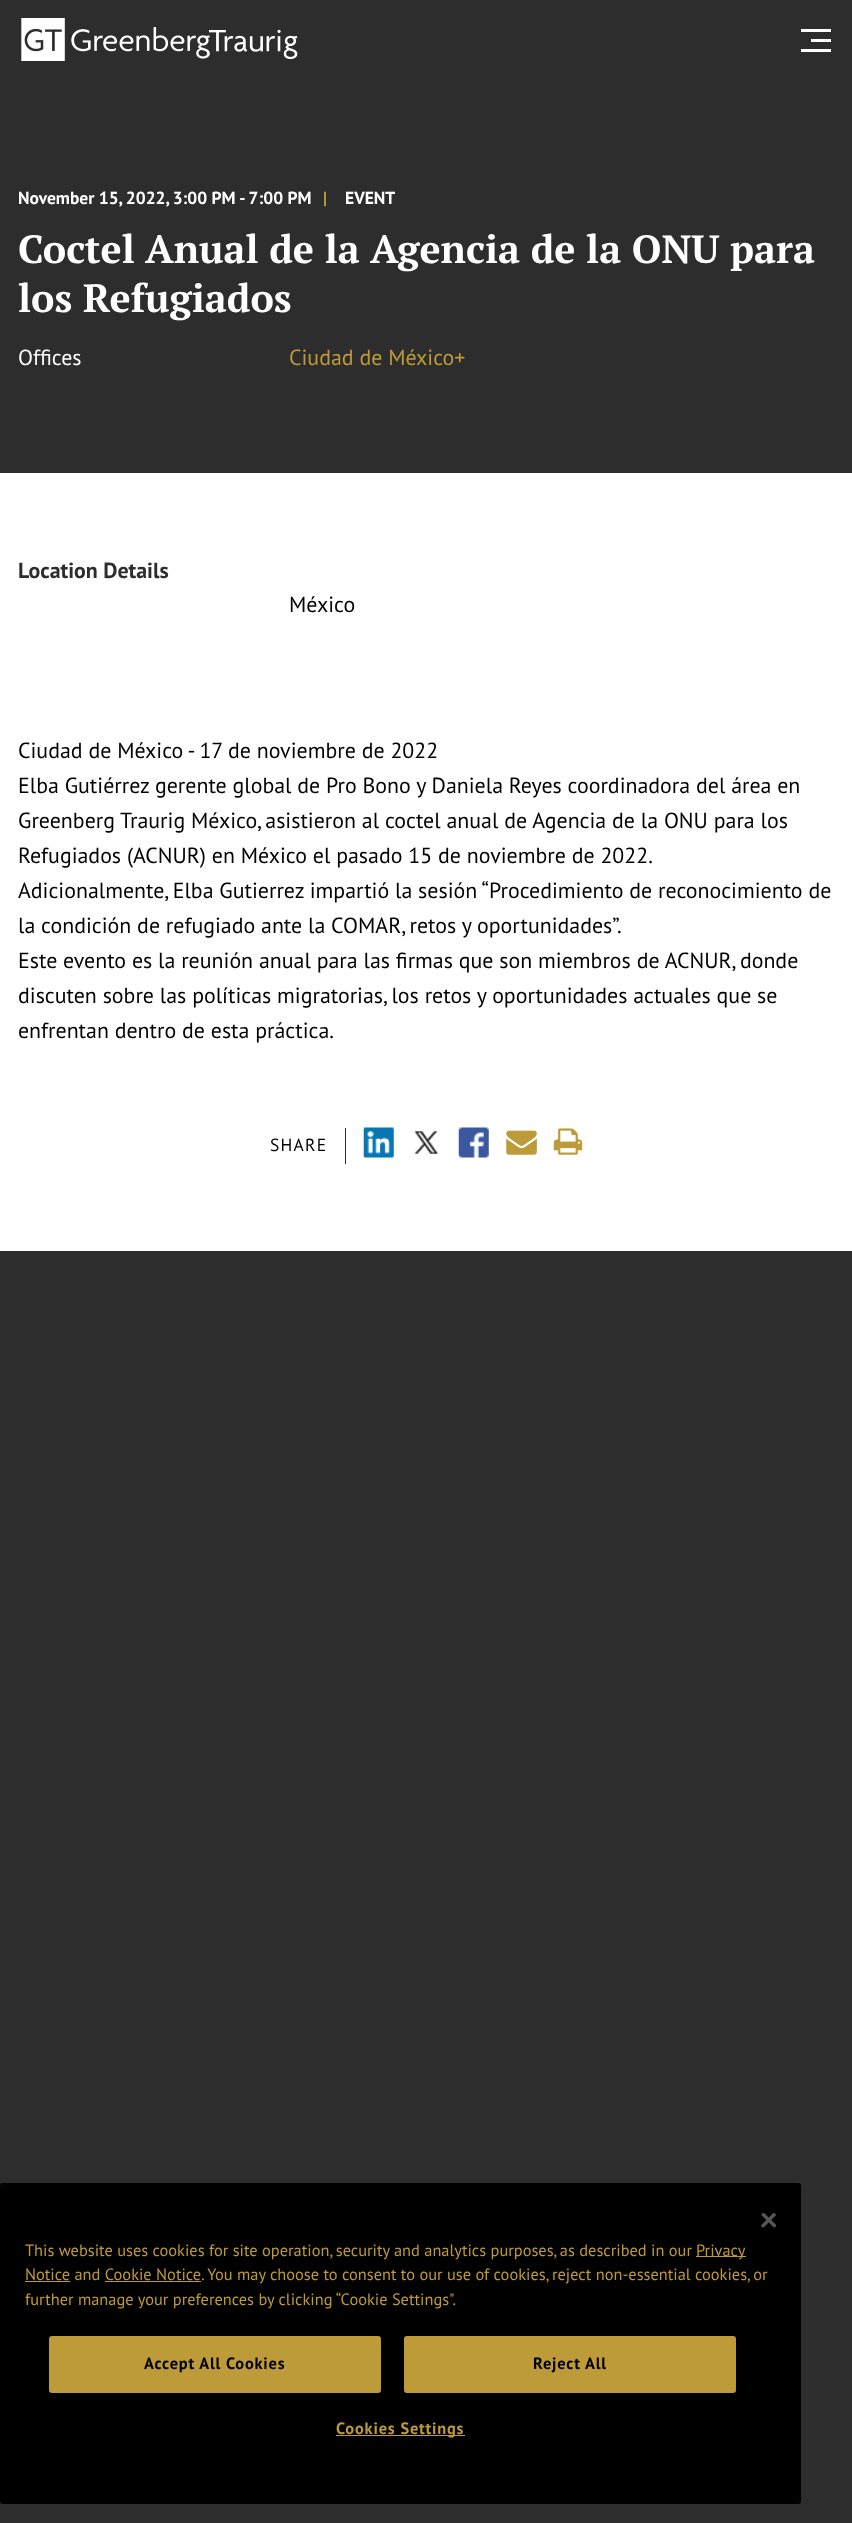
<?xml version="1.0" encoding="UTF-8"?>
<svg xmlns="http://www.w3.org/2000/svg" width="852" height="2523">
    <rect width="100%" height="100%" fill="#2D2D2D"/>
    <image x="21" y="18" width="277" height="43" href="img_01.png"/>
    <rect x="811" y="39" width="20" height="3" fill="#FFFFFF"/>
    <rect x="801" y="29" width="30" height="3" fill="#FFFFFF"/>
    <rect x="801" y="49" width="30" height="3" fill="#FFFFFF"/>
    <text x="18" y="204" font-family="PT Sans" font-size="17.5" font-weight="700" fill="#FFFFFF">November 15, 2022, 3:00 PM - 7:00 PM</text>
    <text x="323" y="204" font-family="PT Sans" font-size="17.5" font-weight="700" fill="#BE9B39">|</text>
    <text x="345" y="204" font-family="PT Sans" font-size="17.5" font-weight="700" fill="#FFFFFF">EVENT</text>
    <text font-family="PT Serif" font-size="39.4" font-weight="700" fill="#FFFFFF">
        <tspan x="18" y="263">Coctel Anual de la Agencia de la ONU para</tspan>
        <tspan x="18" y="312">los Refugiados</tspan>
    </text>
    <text x="18" y="365" font-family="PT Sans" font-size="21.9" fill="#FFFFFF">Offices</text>
    <text x="289" y="365" font-family="PT Sans" font-size="21.9" fill="#BE9B39">Ciudad de México+</text>
    <rect x="0" y="473" width="852" height="778" fill="#FFFFFF"/>
    <text x="18" y="578" font-family="PT Sans" font-size="21.9" font-weight="700" fill="#2D2D2D">Location Details</text>
    <text x="289" y="612" font-family="PT Sans" font-size="21.9" fill="#000000">México</text>
    <text font-family="PT Sans" font-size="21.9" fill="#000000">
        <tspan x="18" y="758">Ciudad de México - 17 de noviembre de 2022</tspan>
        <tspan x="18" y="793">Elba Gutiérrez gerente global de Pro Bono y Daniela Reyes coordinadora del área en</tspan>
        <tspan x="18" y="828">Greenberg Traurig México, asistieron al coctel anual de Agencia de la ONU para los</tspan>
        <tspan x="18" y="863">Refugiados (ACNUR) en México el pasado 15 de noviembre de 2022.</tspan>
        <tspan x="18" y="898">Adicionalmente, Elba Gutierrez impartió la sesión “Procedimiento de reconocimiento de</tspan>
        <tspan x="18" y="933">la condición de refugiado ante la COMAR, retos y oportunidades”.</tspan>
        <tspan x="18" y="968">Este evento es la reunión anual para las firmas que son miembros de ACNUR, donde</tspan>
        <tspan x="18" y="1003">discuten sobre las políticas migratorias, los retos y oportunidades actuales que se</tspan>
        <tspan x="18" y="1038">enfrentan dentro de esta práctica.</tspan>
    </text>
    <text x="270" y="1151" font-family="PT Sans" font-size="17.5" letter-spacing="1.25" fill="#000000">SHARE</text>
    <rect x="345" y="1128" width="1" height="36" fill="#2D2D2D"/>
    <image x="363" y="1127" width="31" height="31" href="img_02.png"/>
    <image x="414" y="1131" width="24" height="23" href="img_03.png"/>
    <image x="458" y="1127" width="31" height="31" href="img_04.png"/>
    <image x="506" y="1130" width="31" height="25" href="img_05.png"/>
    <image x="553" y="1128" width="30" height="27" href="img_06.png"/>
    <rect x="0" y="2183" width="801" height="321" rx="3" fill="#000000"/>
    <image x="761" y="2213" width="15" height="15" href="img_07.png"/>
    <text x="25" y="2256" font-family="PT Sans" font-size="16.4" fill="#BE9B39">This website uses cookies for site operation, security and analytics purposes, as described in our</text>
    <rect x="696" y="2256" width="50" height="1" fill="#BE9B39"/>
    <text x="696" y="2256" font-family="PT Sans" font-size="16.4" fill="#BE9B39">Privacy</text>
    <rect x="25" y="2281" width="45" height="1" fill="#BE9B39"/>
    <text x="25" y="2280" font-family="PT Sans" font-size="16.4" fill="#BE9B39">Notice and Cookie Notice. You may choose to consent to our use of cookies, reject non-essential cookies, or</text>
    <rect x="105" y="2281" width="96" height="1" fill="#BE9B39"/>
    <text x="25" y="2305" font-family="PT Sans" font-size="16.4" fill="#BE9B39">further manage your preferences by clicking “Cookie Settings".</text>
    <rect x="49.5" y="2336.5" width="331" height="56" rx="2" fill="#BE9B39" stroke="#BE9B39"/>
    <text x="144" y="2369" font-family="PT Sans" font-size="16.4" font-weight="700" letter-spacing="0.8" fill="#000000">Accept All Cookies</text>
    <rect x="404.5" y="2336.5" width="331" height="56" rx="2" fill="#BE9B39" stroke="#BE9B39"/>
    <text x="533" y="2369" font-family="PT Sans" font-size="16.4" font-weight="700" letter-spacing="0.8" fill="#000000">Reject All</text>
    <rect x="336" y="2435" width="129" height="1" fill="#BE9B39"/>
    <text x="336" y="2434" font-family="PT Sans" font-size="16.4" font-weight="700" letter-spacing="0.8" fill="#BE9B39">Cookies Settings</text>
</svg>
